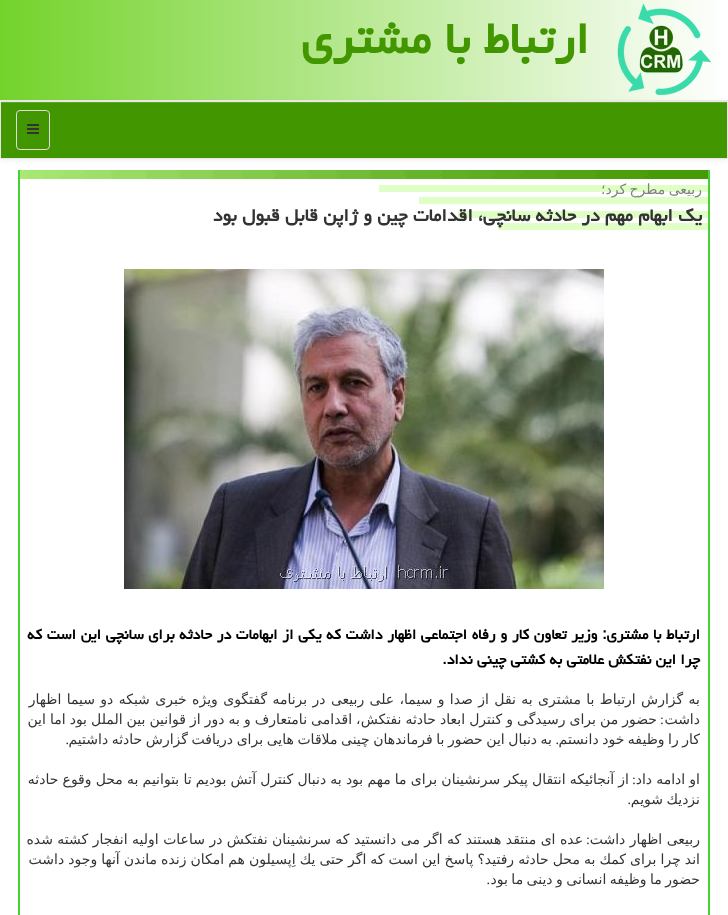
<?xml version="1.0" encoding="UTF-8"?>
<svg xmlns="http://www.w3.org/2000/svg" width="728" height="915">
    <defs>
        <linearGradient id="g1" gradientUnits="userSpaceOnUse" x1="0" y1="50" x2="728" y2="50"><stop offset="0" stop-color="#74D32B"/><stop offset="1" stop-color="#FFFFFF"/></linearGradient>
        <filter id="blur1" x="-50%" y="-200%" width="200%" height="500%"><feGaussianBlur stdDeviation="2.5"/></filter>
    </defs>
    <rect width="100%" height="100%" fill="#FFFFFF"/>
    <rect x="0" y="0" width="719" height="100" fill="url(#g1)"/>
    <rect x="0" y="100" width="728" height="1" fill="#EEEEEE"/>
    <image x="617" y="3" width="94" height="93" href="img_01.png"/>
    <text x="589" y="53" font-family="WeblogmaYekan" font-size="56" font-weight="700" direction="rtl" fill="#429700">ارتباط با مشتری</text>
    <rect x="0" y="102" width="728" height="58" fill="#000000" fill-opacity="0.07" filter="url(#blur1)"/>
    <rect x="1" y="103" width="726" height="55" fill="#429700"/>
    <rect x="1" y="102" width="726" height="1" fill="#5EA726"/>
    <rect x="0.5" y="101.5" width="727" height="57" fill="none" stroke="#E7E7E7"/>
    <rect x="16.5" y="110.5" width="33" height="39" rx="3.5" fill="none" stroke="#DDDDDD"/>
    <image x="27" y="124" width="12" height="10" href="img_02.png"/>
    <image x="20" y="170" width="688" height="60" href="img_03.png"/>
    <path d="M 18 170 H 710 V 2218 C 710 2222 706 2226 702 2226 H 26 C 22 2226 18 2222 18 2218 Z M 20 170 H 708 V 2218 C 708 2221 705 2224 702 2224 H 26 C 23 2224 20 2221 20 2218 Z" fill="#47D133" fill-rule="evenodd"/>
    <text x="702" y="194" word-spacing="-1" font-family="DejaVu Sans" font-size="14" direction="rtl" fill="#808080">ربیعی مطرح كرد؛</text>
    <text x="702" y="221" font-family="WeblogmaYekan" font-size="22.4" font-weight="700" direction="rtl" fill="#333333">یك ابهام مهم در حادثه سانچی، اقدامات چین و ژاپن قابل قبول بود</text>
    <image x="124" y="269" width="480" height="320" href="img_04.png"/>
    <text font-family="WeblogmaYekan" font-size="18" font-weight="700" direction="rtl" fill="#000000">
        <tspan x="700" y="639" word-spacing="0.4">ارتباط با مشتری: وزیر تعاون كار و رفاه اجتماعی اظهار داشت كه یكی از ابهامات در حادثه برای سانچی این است كه</tspan>
        <tspan x="700" y="664">چرا این نفتكش علامتی به كشتی چینی نداد.</tspan>
    </text>
    <text font-family="DejaVu Sans" font-size="14" direction="rtl" fill="#333333">
        <tspan x="700" y="704" word-spacing="0.9">به گزارش ارتباط با مشتری به نقل از صدا و سیما، علی ربیعی در برنامه گفتگوی ویژه خبری شبكه دو سیما اظهار</tspan>
        <tspan x="700" y="724">داشت</tspan>
    </text>
    <text x="657" y="724" word-spacing="-0.4" font-family="DejaVu Sans" font-size="14" direction="rtl" fill="#333333">حضور من برای رسیدگی و كنترل ابعاد حادثه نفتكش، اقدامی نامتعارف و به دور از قوانین بین الملل بود اما این</text>
    <text x="664" y="724" font-family="Liberation Serif" font-size="14" direction="rtl" fill="#333333">:</text>
    <text x="552" y="744" word-spacing="-0.9" font-family="DejaVu Sans" font-size="14" direction="rtl" fill="#333333">به دنبال این حضور با فرماندهان چینی ملاقات هایی برای دریافت گزارش حادثه داشتیم</text>
    <text x="700" y="744" word-spacing="-0.9" font-family="DejaVu Sans" font-size="14" direction="rtl" fill="#333333">كار را وظیفه خود دانستم</text>
    <text x="69" y="744" font-family="Liberation Serif" font-size="14" direction="rtl" fill="#333333">.</text>
    <text x="559" y="744" font-family="Liberation Serif" font-size="14" direction="rtl" fill="#333333">.</text>
    <text x="700" y="784" word-spacing="-0.3" font-family="DejaVu Sans" font-size="14" direction="rtl" fill="#333333">او ادامه داد</text>
    <text x="629" y="784" word-spacing="-0.3" font-family="DejaVu Sans" font-size="14" direction="rtl" fill="#333333">از آنجائیكه انتقال پیكر سرنشینان برای ما مهم بود به دنبال كنترل آتش بودیم تا بتوانیم به محل وقوع حادثه</text>
    <text x="636" y="784" font-family="Liberation Serif" font-size="14" direction="rtl" fill="#333333">:</text>
    <text x="700" y="804" word-spacing="-1" font-family="DejaVu Sans" font-size="14" direction="rtl" fill="#333333">نزدیك شویم</text>
    <text x="631" y="804" font-family="Liberation Serif" font-size="14" direction="rtl" fill="#333333">.</text>
    <text x="700" y="844" font-family="DejaVu Sans" font-size="14" direction="rtl" fill="#333333">ربیعی اظهار داشت</text>
    <text x="590" y="844" font-family="Liberation Serif" font-size="14" direction="rtl" fill="#333333">:</text>
    <text x="583" y="844" font-family="DejaVu Sans" font-size="14" direction="rtl" fill="#333333">عده ای منتقد هستند كه اگر می دانستید كه سرنشینان نفتكش در ساعات اولیه انفجار كشته شده</text>
    <text font-family="DejaVu Sans" font-size="14" direction="rtl" fill="#333333">
        <tspan x="700" y="864" word-spacing="-0.4">اند چرا برای كمك به محل حادثه رفتید؟ پاسخ این است كه اگر حتی یك اِپسیلون هم امكان زنده ماندن آنها وجود داشت</tspan>
        <tspan x="700" y="884" word-spacing="-1">حضور ما وظیفه انسانی و دینی ما بود</tspan>
    </text>
    <text x="490" y="884" font-family="Liberation Serif" font-size="14" direction="rtl" fill="#333333">.</text>
</svg>
